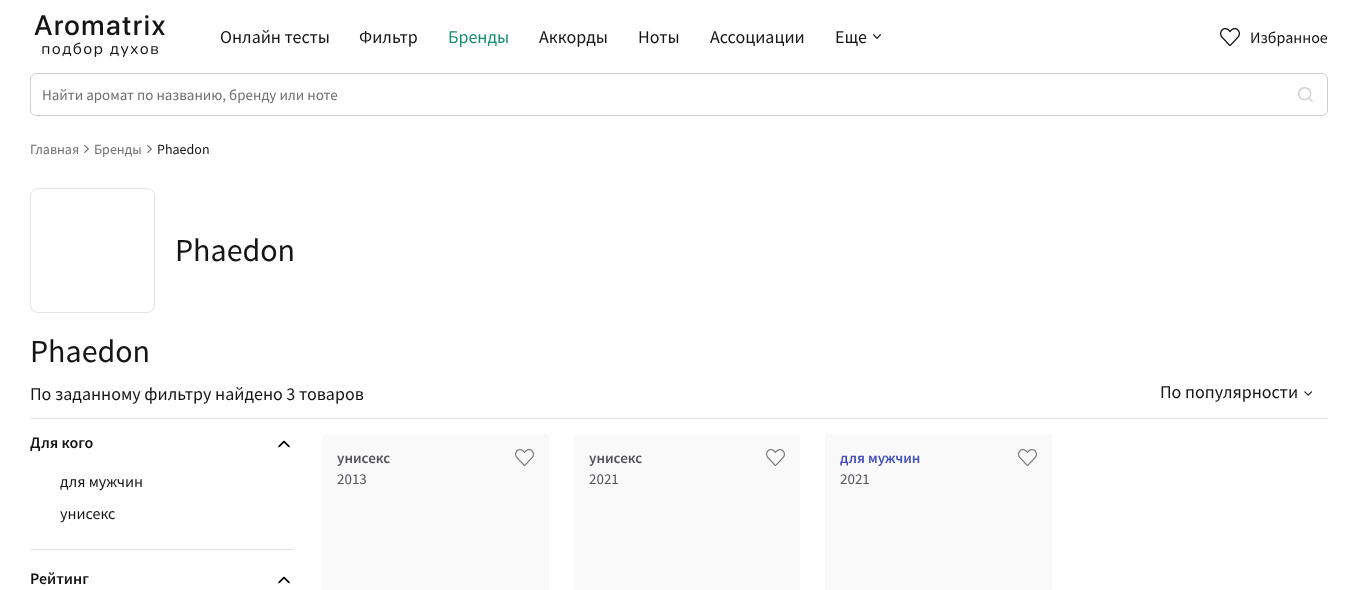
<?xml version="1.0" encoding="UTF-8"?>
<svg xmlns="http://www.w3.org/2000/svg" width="1358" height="590">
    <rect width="100%" height="100%" fill="#FFFFFF"/>
    <image x="34" y="15" width="131" height="42" href="img_01.png"/>
    <text x="220" y="43" font-family="Source Sans Pro" font-size="18" fill="#151517">Онлайн тесты</text>
    <text x="359" y="43" font-family="Source Sans Pro" font-size="18" fill="#151517">Фильтр</text>
    <text x="448" y="43" font-family="Source Sans Pro" font-size="18" fill="#178F73">Бренды</text>
    <text x="539" y="43" font-family="Source Sans Pro" font-size="18" fill="#151517">Аккорды</text>
    <text x="638" y="43" font-family="Source Sans Pro" font-size="18" fill="#151517">Ноты</text>
    <text x="710" y="43" font-family="Source Sans Pro" font-size="18" fill="#151517">Ассоциации</text>
    <text x="835" y="43" font-family="Source Sans Pro" font-size="18" fill="#151517">Еще</text>
    <image x="873" y="34" width="8" height="5" href="img_02.png"/>
    <image x="1220" y="28" width="20" height="18" href="img_03.png"/>
    <text x="1250" y="43" font-family="Source Sans Pro" font-size="16" fill="#151517">Избранное</text>
    <rect x="30.5" y="73.5" width="1297" height="42" rx="5.5" fill="none" stroke="#CFCFCF"/>
    <rect x="31" y="74" width="1296" height="41" rx="6" fill="#FFFFFF"/>
    <text x="42" y="100" font-family="Source Sans Pro" font-size="15" fill="#6F6F74">Найти аромат по названию, бренду или ноте</text>
    <image x="1298" y="87" width="15" height="15" href="img_04.png"/>
    <text x="30" y="154" font-family="Source Sans Pro" font-size="14" fill="#6F6F74">Главная</text>
    <image x="84" y="145" width="5" height="8" href="img_05.png"/>
    <text x="94" y="154" font-family="Source Sans Pro" font-size="14" fill="#6F6F74">Бренды</text>
    <image x="147" y="145" width="5" height="8" href="img_05.png"/>
    <text x="157" y="154" font-family="Source Sans Pro" font-size="14" fill="#151517">Phaedon</text>
    <rect x="30.5" y="188.5" width="124" height="124" rx="7.5" fill="none" stroke="#E4E4E4"/>
    <text x="175" y="261" font-family="Source Sans Pro" font-size="32" fill="#151517">Phaedon</text>
    <rect x="30" y="418" width="1298" height="1" fill="#E4E4E4"/>
    <text x="30" y="362" font-family="Source Sans Pro" font-size="32" fill="#151517">Phaedon</text>
    <text x="30" y="400" font-family="Source Sans Pro" font-size="18" fill="#151517">По заданному фильтру найдено 3 товаров</text>
    <text x="1160" y="398" font-family="Source Sans Pro" font-size="18" fill="#151517">По популярности</text>
    <image x="1304" y="391" width="8" height="5" href="img_06.png"/>
    <rect x="30" y="549" width="264" height="1" fill="#E4E4E4"/>
    <text x="30" y="448" font-family="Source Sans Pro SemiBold" font-size="16" font-weight="600" fill="#151517">Для кого</text>
    <image x="278" y="440" width="12" height="8" href="img_07.png"/>
    <text x="60" y="487" font-family="Source Sans Pro" font-size="16" fill="#151517">для мужчин</text>
    <text x="60" y="519" font-family="Source Sans Pro" font-size="16" fill="#151517">унисекс</text>
    <text x="30" y="584" font-family="Source Sans Pro SemiBold" font-size="16" font-weight="600" fill="#151517">Рейтинг</text>
    <image x="278" y="576" width="12" height="8" href="img_07.png"/>
    <rect x="322" y="434" width="227" height="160" rx="4" fill="#F9F9FA"/>
    <text x="337" y="463" font-family="Source Sans Pro SemiBold" font-size="15" font-weight="600" fill="#54545A">унисекс</text>
    <text x="337" y="484" font-family="Source Sans Pro" font-size="15" fill="#54545A">2013</text>
    <image x="515" y="449" width="19" height="17" href="img_08.png"/>
    <rect x="574" y="434" width="226" height="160" rx="4" fill="#F9F9FA"/>
    <text x="589" y="463" font-family="Source Sans Pro SemiBold" font-size="15" font-weight="600" fill="#54545A">унисекс</text>
    <text x="589" y="484" font-family="Source Sans Pro" font-size="15" fill="#54545A">2021</text>
    <image x="766" y="449" width="19" height="17" href="img_08.png"/>
    <rect x="825" y="434" width="227" height="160" rx="4" fill="#F9F9FA"/>
    <text x="840" y="463" font-family="Source Sans Pro SemiBold" font-size="15" font-weight="600" fill="#4752BE">для мужчин</text>
    <text x="840" y="484" font-family="Source Sans Pro" font-size="15" fill="#54545A">2021</text>
    <image x="1018" y="449" width="19" height="17" href="img_08.png"/>
</svg>
